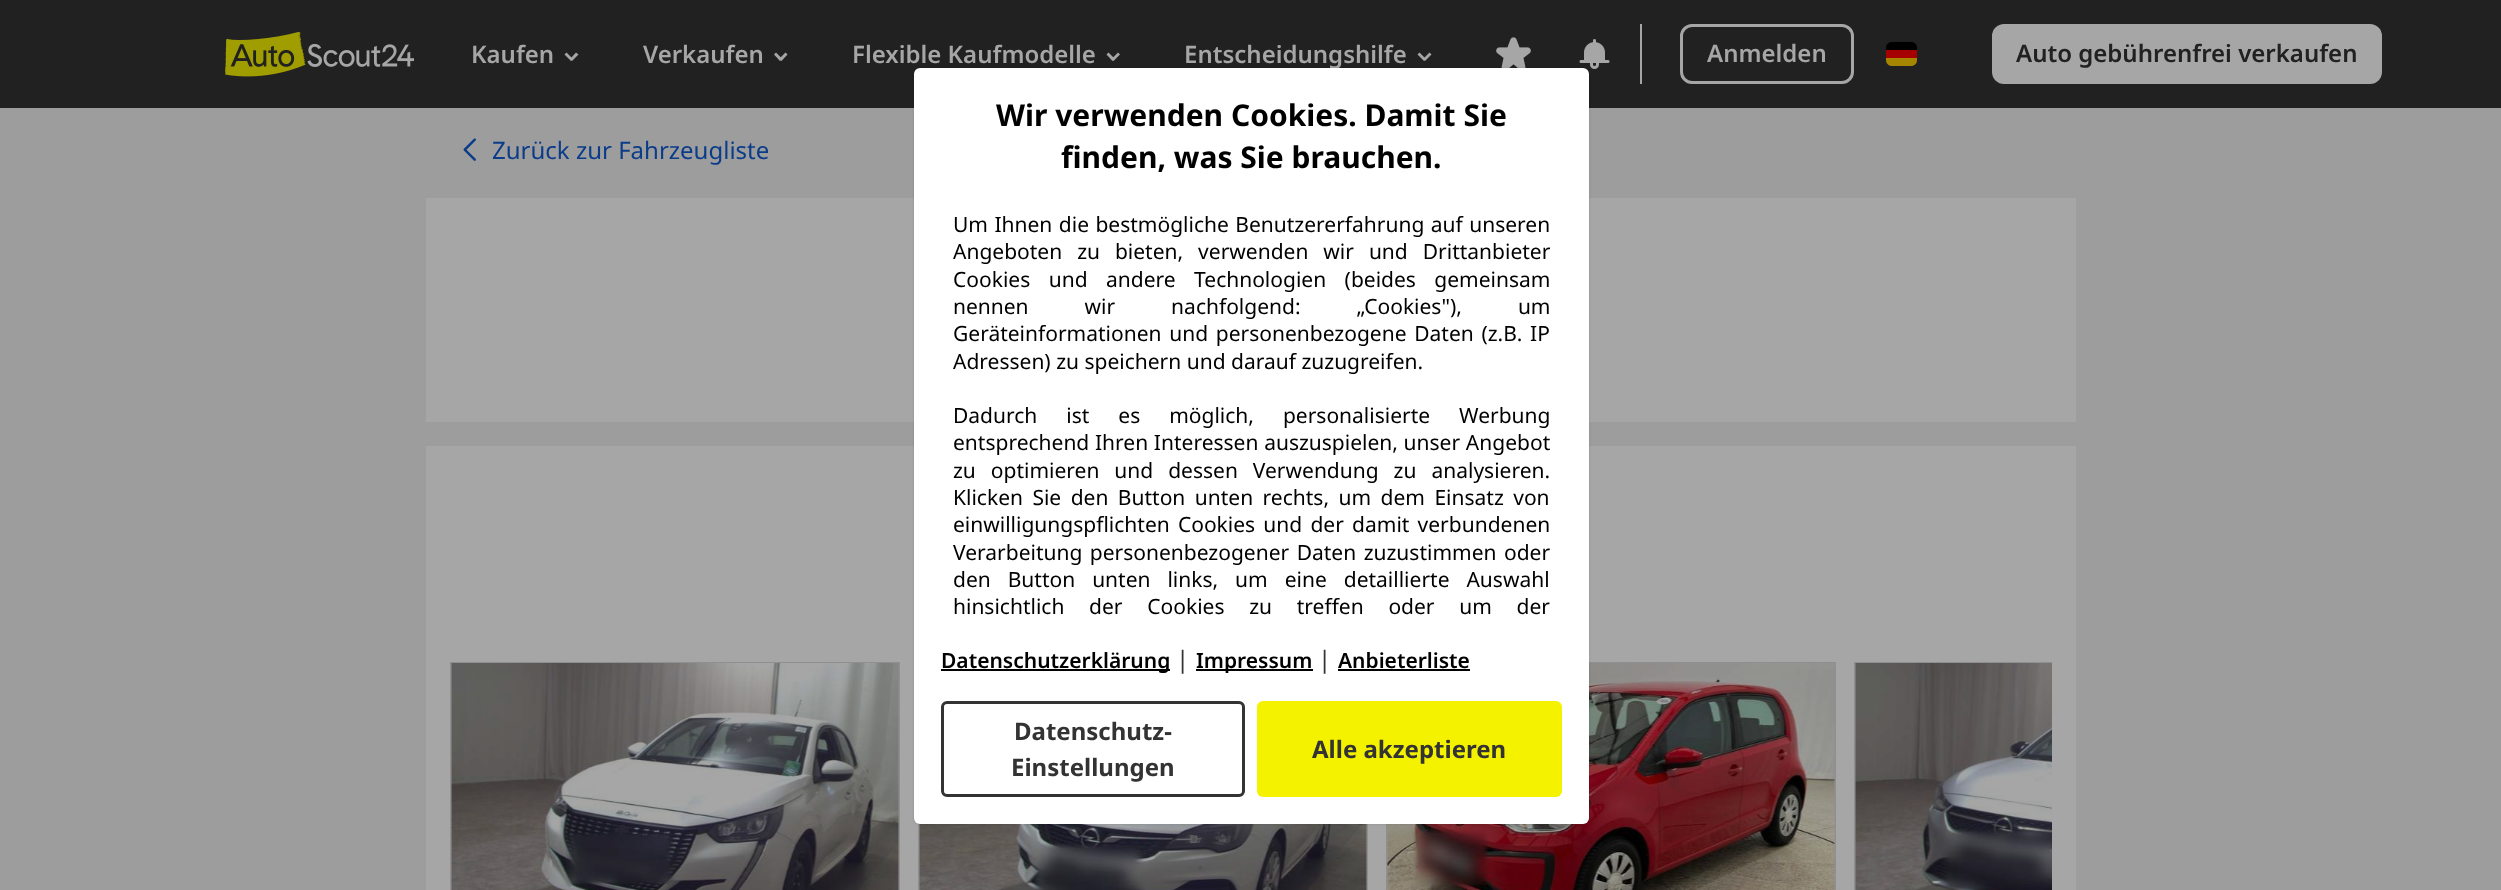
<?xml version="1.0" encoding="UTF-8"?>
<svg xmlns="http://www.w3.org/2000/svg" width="2501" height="890">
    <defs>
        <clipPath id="clip1"><rect x="450" y="662" width="1602" height="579"/></clipPath>
        <filter id="blur1" x="-50%" y="-200%" width="200%" height="500%"><feGaussianBlur stdDeviation="1.5"/></filter>
    </defs>
    <rect width="100%" height="100%" fill="#9D9D9D"/>
    <rect x="0" y="0" width="2501" height="108" fill="#212121"/>
    <image x="225" y="32" width="189" height="45" href="img_01.png"/>
    <text x="471" y="63" font-family="Noto Sans" font-size="24" font-weight="600" fill="#A6A6A6">Kaufen</text>
    <path d="M 578.5 54.5 L 572 61 L 570 59 L 576 52.5 Z" fill="#A6A6A6"/>
    <path d="M 573 59 L 571 61 L 564.5 54.5 L 566.5 52.5 Z" fill="#A6A6A6"/>
    <text x="643" y="63" font-family="Noto Sans" font-size="24" font-weight="600" fill="#A6A6A6">Verkaufen</text>
    <path d="M 787.5 54.5 L 781.5 61 L 779 59 L 785.5 52.5 Z" fill="#A6A6A6"/>
    <path d="M 782.5 59 L 780 61 L 774 54.5 L 776 52.5 Z" fill="#A6A6A6"/>
    <text x="852" y="63" font-family="Noto Sans" font-size="24" font-weight="600" fill="#A6A6A6">Flexible Kaufmodelle</text>
    <path d="M 1120 54.5 L 1113.5 61 L 1111.5 59 L 1118 52.5 Z" fill="#A6A6A6"/>
    <path d="M 1115 59 L 1112.5 61 L 1106.5 54.5 L 1108.5 52.5 Z" fill="#A6A6A6"/>
    <text x="1184" y="63" font-family="Noto Sans" font-size="24" font-weight="600" fill="#A6A6A6">Entscheidungshilfe</text>
    <path d="M 1431.5 54.5 L 1425 61 L 1423 59 L 1429.5 52.5 Z" fill="#A6A6A6"/>
    <path d="M 1426 59 L 1424 61 L 1417.5 54.5 L 1419.5 52.5 Z" fill="#A6A6A6"/>
    <image x="1496" y="37" width="35" height="31" href="img_02.png"/>
    <image x="1579" y="39" width="31" height="30" href="img_03.png"/>
    <rect x="1640" y="24" width="2" height="60" fill="#A6A6A6"/>
    <rect x="1681.5" y="25.5" width="171" height="57" rx="10.5" fill="none" stroke="#A6A6A6" stroke-width="3"/>
    <text x="1707" y="62" font-family="Noto Sans" font-size="24" font-weight="600" fill="#A6A6A6">Anmelden</text>
    <path d="M 1886 58 H 1917 V 60 C 1917 63.5 1914.5 66 1911 66 H 1892 C 1888.5 66 1886 63.5 1886 60 Z" fill="#A68500"/>
    <path d="M 1892 42 H 1911 C 1914.5 42 1917 44.5 1917 48 V 50 H 1886 V 48 C 1886 44.5 1888.5 42 1892 42 Z" fill="#000000"/>
    <rect x="1886" y="50" width="31" height="8" fill="#A60000"/>
    <rect x="1992" y="24" width="390" height="60" rx="12" fill="#A6A6A6"/>
    <text x="2016" y="62" font-family="Noto Sans" font-size="24" font-weight="600" fill="#212121">Auto gebührenfrei verkaufen</text>
    <image x="463" y="138" width="13" height="23" href="img_04.png"/>
    <text x="492" y="159" font-family="Noto Sans" font-size="24" fill="#0A3C89">Zurück zur Fahrzeugliste</text>
    <rect x="426" y="198" width="1650" height="224" fill="#A6A6A6"/>
    <rect x="426" y="446" width="1650" height="444" fill="#A6A6A6"/>
    <rect x="451" y="663" width="448" height="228" fill="none" stroke="#8F8F8F" stroke-width="2"/>
    <image x="451" y="663" width="448" height="227" href="img_05.png"/>
    <rect x="919" y="663" width="448" height="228" fill="none" stroke="#8F8F8F" stroke-width="2"/>
    <image x="919" y="823" width="448" height="67" href="img_06.png"/>
    <rect x="1387" y="663" width="448" height="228" fill="none" stroke="#8F8F8F" stroke-width="2"/>
    <image x="1387" y="663" width="448" height="227" href="img_07.png"/>
    <g clip-path="url(#clip1)">
        <rect x="1855" y="663" width="448" height="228" fill="none" stroke="#8F8F8F" stroke-width="2"/>
    </g>
    <image x="1855" y="663" width="197" height="227" href="img_08.png"/>
    <rect x="914" y="68" width="675" height="756" rx="6" fill="#000000" fill-opacity="0.12" filter="url(#blur1)"/>
    <rect x="914" y="68" width="675" height="756" rx="6" fill="#FFFFFF"/>
    <text x="996" y="126" font-family="Noto Sans" font-size="30" font-weight="700" fill="#000000">Wir verwenden Cookies. Damit Sie</text>
    <text x="1061" y="168" font-family="Noto Sans" font-size="30" font-weight="700" fill="#000000">finden, was Sie brauchen.</text>
    <text font-family="Noto Sans" font-size="21" fill="#000000">
        <tspan x="953" y="232" word-spacing="1">Um Ihnen die bestmögliche Benutzererfahrung auf unseren</tspan>
        <tspan x="953" y="259" word-spacing="9.5">Angeboten zu bieten, verwenden wir und Drittanbieter</tspan>
        <tspan x="953" y="287" word-spacing="13">Cookies und andere Technologien (beides gemeinsam</tspan>
        <tspan x="953" y="314" word-spacing="50.5">nennen wir nachfolgend: „Cookies"), um</tspan>
        <tspan x="953" y="341" word-spacing="2.25">Geräteinformationen und personenbezogene Daten (z.B. IP</tspan>
        <tspan x="953" y="369">Adressen) zu speichern und darauf zuzugreifen.</tspan>
    </text>
    <text font-family="Noto Sans" font-size="21" fill="#000000">
        <tspan x="953" y="423" word-spacing="23.5">Dadurch ist es möglich, personalisierte Werbung</tspan>
        <tspan x="953" y="450" word-spacing="0.25">entsprechend Ihren Interessen auszuspielen, unser Angebot</tspan>
        <tspan x="953" y="478" word-spacing="9.5">zu optimieren und dessen Verwendung zu analysieren.</tspan>
        <tspan x="953" y="505" word-spacing="4">Klicken Sie den Button unten rechts, um dem Einsatz von</tspan>
        <tspan x="953" y="532" word-spacing="2.75">einwilligungspflichten Cookies und der damit verbundenen</tspan>
        <tspan x="953" y="560" word-spacing="2">Verarbeitung personenbezogener Daten zuzustimmen oder</tspan>
        <tspan x="953" y="587" word-spacing="11.5">den Button unten links, um eine detaillierte Auswahl</tspan>
        <tspan x="953" y="614" word-spacing="19.25">hinsichtlich der Cookies zu treffen oder um der</tspan>
    </text>
    <rect x="941" y="669" width="229" height="2" fill="#000000"/>
    <text x="941" y="668" font-family="Noto Sans" font-size="21" font-weight="600" fill="#000000">Datenschutzerklärung</text>
    <text x="1176" y="668" font-family="Noto Sans" font-size="24" fill="#333333">|</text>
    <rect x="1196" y="669" width="117" height="2" fill="#000000"/>
    <text x="1196" y="668" font-family="Noto Sans" font-size="21" font-weight="600" fill="#000000">Impressum</text>
    <text x="1318" y="668" font-family="Noto Sans" font-size="24" fill="#333333">|</text>
    <text x="1338" y="668" font-family="Noto Sans" font-size="21" font-weight="600" fill="#000000">Anbieterliste</text>
    <rect x="1338" y="669" width="132" height="2" fill="#000000"/>
    <rect x="942.5" y="702.5" width="301" height="93" rx="4.5" fill="none" stroke="#333333" stroke-width="3"/>
    <text x="1014" y="740" font-family="Noto Sans" font-size="24" font-weight="700" fill="#333333">Datenschutz-</text>
    <text x="1011" y="776" font-family="Noto Sans" font-size="24" font-weight="700" fill="#333333">Einstellungen</text>
    <rect x="1257" y="701" width="305" height="96" rx="6" fill="#F5F200"/>
    <text x="1312" y="758" font-family="Noto Sans" font-size="24" font-weight="700" fill="#333333">Alle akzeptieren</text>
</svg>
